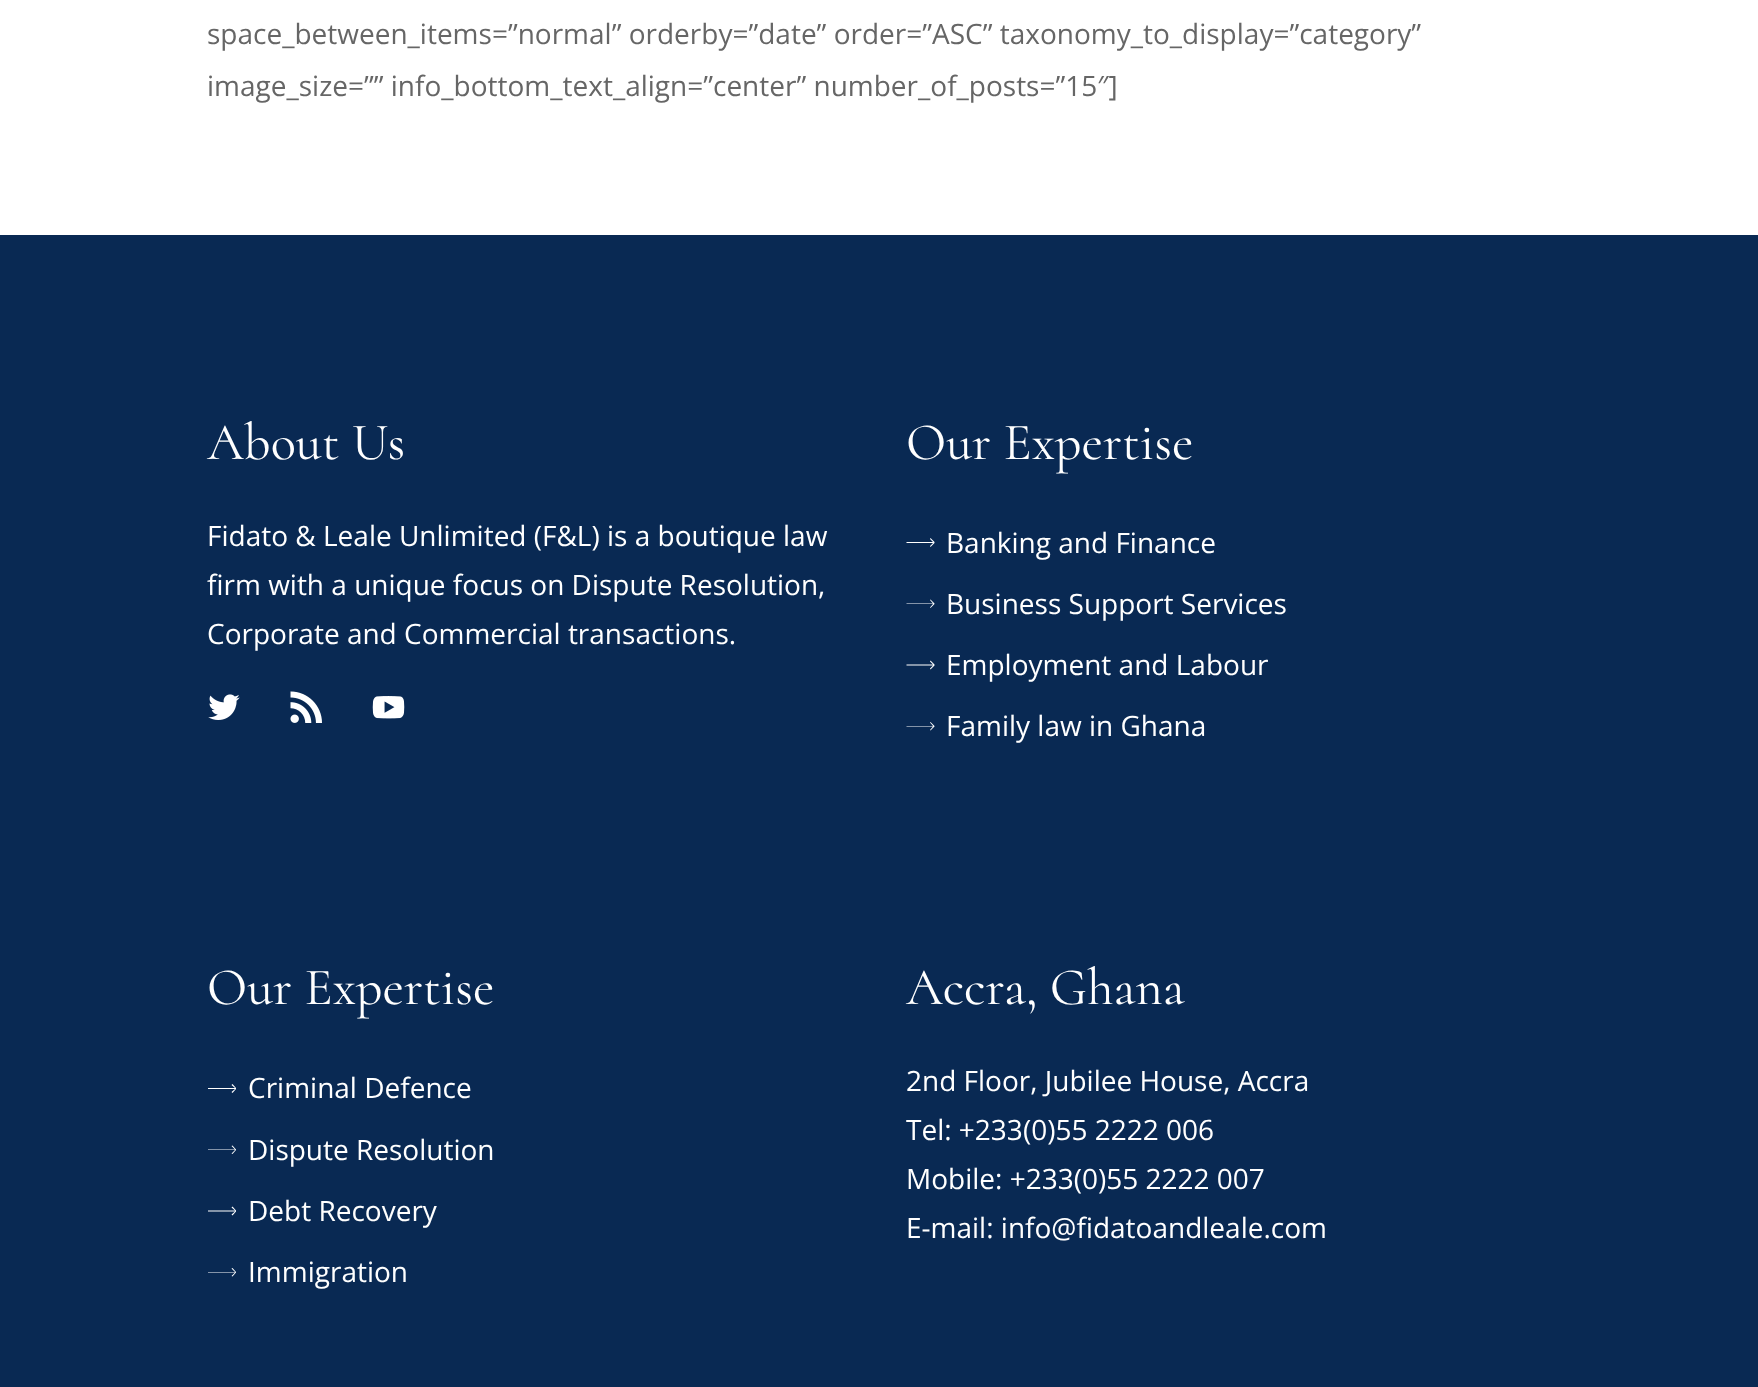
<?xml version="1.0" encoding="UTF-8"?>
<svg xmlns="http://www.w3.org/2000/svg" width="1758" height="1387">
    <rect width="100%" height="100%" fill="#FFFFFF"/>
    <text font-family="Open Sans" font-size="28" fill="#666666">
        <tspan x="207" y="44">space_between_items=”normal” orderby=”date” order=”ASC” taxonomy_to_display=”category”</tspan>
        <tspan x="207" y="96">image_size=”” info_bottom_text_align=”center” number_of_posts=”15″]</tspan>
    </text>
    <rect x="0" y="235" width="1758" height="1152" fill="#092953"/>
    <text x="207" y="459" font-family="Cormorant" font-size="52.5" fill="#FFFFFF">About Us</text>
    <text font-family="Open Sans" font-size="28" fill="#FFFFFF">
        <tspan x="207" y="546">Fidato &amp; Leale Unlimited (F&amp;L) is a boutique law</tspan>
        <tspan x="207" y="595">firm with a unique focus on Dispute Resolution,</tspan>
        <tspan x="207" y="644">Corporate and Commercial transactions.</tspan>
    </text>
    <image x="208" y="694" width="32" height="26" href="img_01.png"/>
    <image x="290" y="691" width="32" height="32" href="img_02.png"/>
    <image x="372" y="696" width="33" height="23" href="img_03.png"/>
    <text x="906" y="459" font-family="Cormorant" font-size="52.5" fill="#FFFFFF">Our Expertise</text>
    <path d="M 930 546 L 933 543 H 906.5 V 542 H 933 L 930 539 L 930.5 538 L 934.5 542 V 543 L 930.5 547 Z" fill="#FFFFFF"/>
    <text x="946" y="553" font-family="Open Sans" font-size="28" fill="#FFFFFF">Banking and Finance</text>
    <path d="M 930 607.5 L 933 604 H 906.5 V 603.5 H 933 L 930 600 L 930.5 599.5 L 934.5 603.5 V 604 L 930.5 608 Z" fill="#FFFFFF"/>
    <text x="946" y="614" font-family="Open Sans" font-size="28" fill="#FFFFFF">Business Support Services</text>
    <path d="M 930 668.5 L 933 665.5 H 906.5 V 664.5 H 933 L 930 661.5 L 930.5 660.5 L 934.5 664.5 V 665.5 L 930.5 669.5 Z" fill="#FFFFFF"/>
    <text x="946" y="675" font-family="Open Sans" font-size="28" fill="#FFFFFF">Employment and Labour</text>
    <path d="M 930 730 L 933 726.5 H 906.5 V 726 H 933 L 930 722.5 L 930.5 722 L 934.5 726 V 726.5 L 930.5 730.5 Z" fill="#FFFFFF"/>
    <text x="946" y="736" font-family="Open Sans" font-size="28" fill="#FFFFFF">Family law in Ghana</text>
    <text x="207" y="1004" font-family="Cormorant" font-size="52.5" fill="#FFFFFF">Our Expertise</text>
    <path d="M 231.5 1092 L 235 1089 H 208 V 1088 H 235 L 231.5 1085 L 232.5 1084 L 236 1088 V 1089 L 232.5 1093 Z" fill="#FFFFFF"/>
    <text x="248" y="1098" font-family="Open Sans" font-size="28" fill="#FFFFFF">Criminal Defence</text>
    <path d="M 231.5 1153.5 L 235 1150 H 208 V 1149.5 H 235 L 231.5 1146 L 232.5 1145.5 L 236 1149.5 V 1150 L 232.5 1154 Z" fill="#FFFFFF"/>
    <text x="248" y="1160" font-family="Open Sans" font-size="28" fill="#FFFFFF">Dispute Resolution</text>
    <path d="M 231.5 1214.5 L 235 1211.5 H 208 V 1210.5 H 235 L 231.5 1207.5 L 232.5 1206.5 L 236 1210.5 V 1211.5 L 232.5 1215.5 Z" fill="#FFFFFF"/>
    <text x="248" y="1221" font-family="Open Sans" font-size="28" fill="#FFFFFF">Debt Recovery</text>
    <path d="M 231.5 1276 L 235 1272.5 H 208 V 1272 H 235 L 231.5 1268.5 L 232.5 1268 L 236 1272 V 1272.5 L 232.5 1276.5 Z" fill="#FFFFFF"/>
    <text x="248" y="1282" font-family="Open Sans" font-size="28" fill="#FFFFFF">Immigration</text>
    <text x="906" y="1004" font-family="Cormorant" font-size="52.5" fill="#FFFFFF">Accra, Ghana</text>
    <text font-family="Open Sans" font-size="28" fill="#FFFFFF">
        <tspan x="906" y="1091">2nd Floor, Jubilee House, Accra</tspan>
        <tspan x="906" y="1140">Tel: +233(0)55 2222 006</tspan>
        <tspan x="906" y="1189">Mobile: +233(0)55 2222 007</tspan>
        <tspan x="906" y="1238">E-mail: info@fidatoandleale.com</tspan>
    </text>
</svg>
